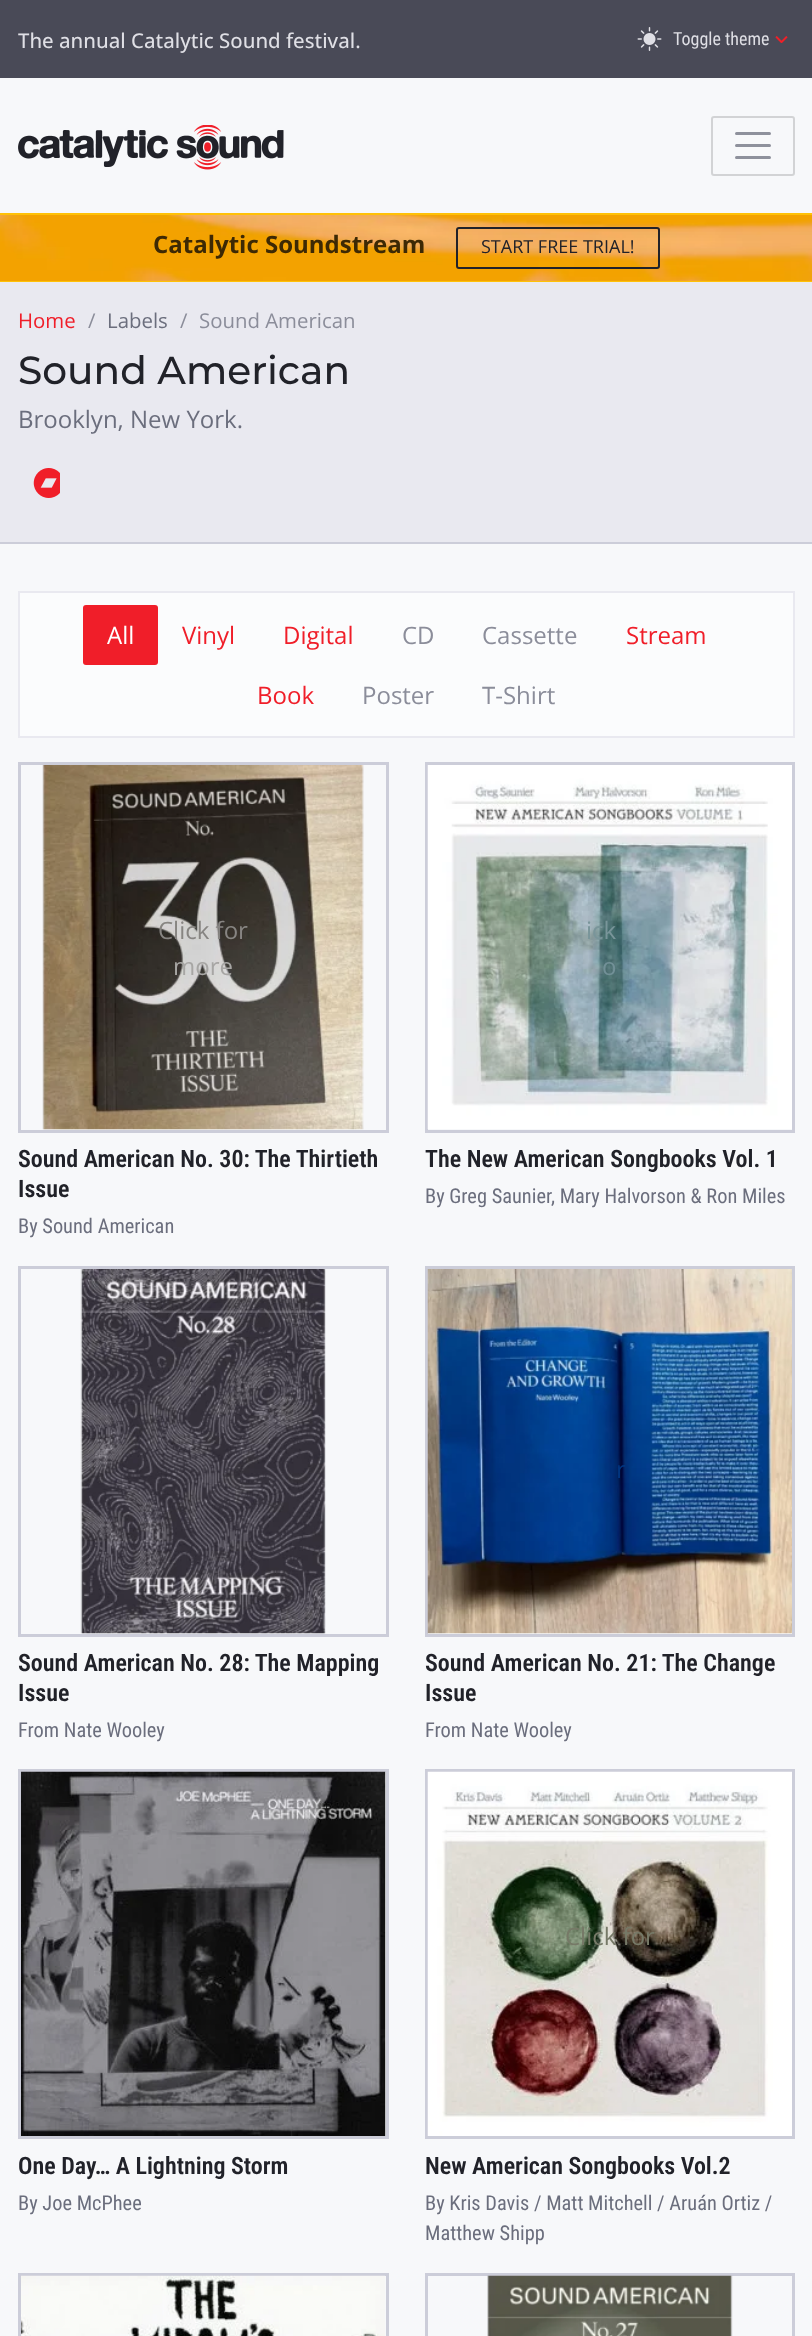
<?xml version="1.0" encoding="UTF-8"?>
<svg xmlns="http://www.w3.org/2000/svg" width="812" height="2336">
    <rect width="100%" height="100%" fill="#F7F8FA"/>
    <rect x="0" y="0" width="812" height="78" fill="#494A57"/>
    <text x="18" y="48" font-family="Open Sans" font-size="20.4" font-weight="500" fill="#DFDFE5">The annual Catalytic Sound festival.</text>
    <image x="637" y="27" width="25" height="24" href="img_01.png"/>
    <text x="673" y="45" font-family="Roboto Condensed" font-size="18" fill="#DFDFE5">Toggle theme</text>
    <image x="775" y="36" width="13" height="7" href="img_02.png"/>
    <image x="18" y="125" width="266" height="45" href="img_03.png"/>
    <rect x="712" y="117" width="82" height="58" rx="2" fill="none" stroke="#D2D3D5" stroke-width="2"/>
    <path d="M 736.5 133.5 H 769.5 M 736.5 145.5 H 769.5 M 736.5 157.5 H 769.5" fill="none" stroke="#8E919C" stroke-width="3" stroke-linecap="round"/>
    <image x="0" y="215" width="812" height="66" href="img_04.png"/>
    <rect x="0" y="213" width="812" height="2" fill="#FFC107"/>
    <rect x="0" y="281" width="812" height="1" fill="#FFC107"/>
    <text x="153" y="253" font-family="Open Sans" font-size="24" font-weight="700" fill="#3D2904">Catalytic Soundstream</text>
    <rect x="457" y="228" width="202" height="40" rx="2" fill="none" stroke="#212229" stroke-width="2"/>
    <text x="481" y="253" font-family="Open Sans" font-size="18" fill="#212229">START FREE TRIAL!</text>
    <rect x="0" y="282" width="812" height="260" fill="#E9E9F0"/>
    <rect x="0" y="542" width="812" height="2" fill="#CCCDD9"/>
    <text x="18" y="328" font-family="Open Sans" font-size="20.4" fill="#F01E29">Home</text>
    <text x="88" y="328" font-family="Open Sans" font-size="20.4" fill="#8B8D9A">/</text>
    <text x="107" y="328" font-family="Open Sans" font-size="20.4" fill="#6B6E7D">Labels</text>
    <text x="180" y="328" font-family="Open Sans" font-size="20.4" fill="#8B8D9A">/</text>
    <text x="199" y="328" font-family="Open Sans" font-size="20.4" fill="#8B8D9A">Sound American</text>
    <text x="18" y="384" font-family="Montserrat" font-size="39.1" font-weight="500" fill="#212229">Sound American</text>
    <text x="18" y="428" font-family="Open Sans" font-size="24" fill="#6B6E7D">Brooklyn, New York.</text>
    <image x="33" y="468" width="27" height="30" href="img_05.png"/>
    <rect x="19" y="592" width="775" height="145" fill="#FBFCFD" stroke="#E9E9F0" stroke-width="2"/>
    <rect x="83" y="605" width="75" height="60" rx="3" fill="#F01E29"/>
    <text x="107" y="644" font-family="Open Sans" font-size="24" fill="#FFFFFF">All</text>
    <text x="182" y="644" font-family="Open Sans" font-size="24" fill="#F01E29">Vinyl</text>
    <text x="283" y="644" font-family="Open Sans" font-size="24" fill="#F01E29">Digital</text>
    <text x="402" y="644" font-family="Open Sans" font-size="24" fill="#8B8D9A">CD</text>
    <text x="482" y="644" font-family="Open Sans" font-size="24" fill="#8B8D9A">Cassette</text>
    <text x="626" y="644" font-family="Open Sans" font-size="24" fill="#F01E29">Stream</text>
    <text x="257" y="704" font-family="Open Sans" font-size="24" fill="#F01E29">Book</text>
    <text x="362" y="704" font-family="Open Sans" font-size="24" fill="#8B8D9A">Poster</text>
    <text x="482" y="704" font-family="Open Sans" font-size="24" fill="#8B8D9A">T-Shirt</text>
    <path d="M 19.5 763.5 H 387.5 V 1131.5 H 19.5 Z" fill="none" stroke="#CCCDD9" stroke-width="3"/>
    <image x="42" y="765" width="322" height="365" href="img_06.png"/>
    <text x="158" y="939" font-family="Open Sans" font-size="24" fill="#878582">Click for</text>
    <text x="173" y="975" font-family="Open Sans" font-size="24" fill="#A7A6A4">more</text>
    <text font-family="Roboto Condensed" font-size="24" font-weight="600" fill="#212229">
        <tspan x="18" y="1167">Sound American No. 30: The Thirtieth</tspan>
        <tspan x="18" y="1197">Issue</tspan>
    </text>
    <text x="18" y="1233" font-family="Roboto Condensed" font-size="20.4" fill="#6B6E7D">By Sound American</text>
    <path d="M 426.5 763.5 H 793.5 V 1131.5 H 426.5 Z" fill="none" stroke="#CCCDD9" stroke-width="3"/>
    <image x="427" y="765" width="365" height="364" href="img_07.png"/>
    <text x="586" y="939" font-family="Open Sans" font-size="24" fill="#79959A">ick</text>
    <text x="602" y="975" font-family="Open Sans" font-size="24" fill="#729097">o</text>
    <text x="425" y="1167" font-family="Roboto Condensed" font-size="24" font-weight="600" fill="#212229">The New American Songbooks Vol. 1</text>
    <text x="425" y="1203" font-family="Roboto Condensed" font-size="20.4" fill="#6B6E7D">By Greg Saunier, Mary Halvorson &amp; Ron Miles</text>
    <path d="M 19.5 1267.5 H 387.5 V 1635.5 H 19.5 Z" fill="none" stroke="#CCCDD9" stroke-width="3"/>
    <image x="80" y="1269" width="246" height="365" href="img_08.png"/>
    <text font-family="Roboto Condensed" font-size="24" font-weight="600" fill="#212229">
        <tspan x="18" y="1671">Sound American No. 28: The Mapping</tspan>
        <tspan x="18" y="1701">Issue</tspan>
    </text>
    <text x="18" y="1737" font-family="Roboto Condensed" font-size="20.4" fill="#6B6E7D">From Nate Wooley</text>
    <path d="M 426.5 1267.5 H 793.5 V 1635.5 H 426.5 Z" fill="none" stroke="#CCCDD9" stroke-width="3"/>
    <image x="427" y="1269" width="365" height="365" href="img_09.png"/>
    <text x="616" y="1478" font-family="Open Sans" font-size="24" fill="#00347E">r</text>
    <text font-family="Roboto Condensed" font-size="24" font-weight="600" fill="#212229">
        <tspan x="425" y="1671">Sound American No. 21: The Change</tspan>
        <tspan x="425" y="1701">Issue</tspan>
    </text>
    <text x="425" y="1737" font-family="Roboto Condensed" font-size="20.4" fill="#6B6E7D">From Nate Wooley</text>
    <path d="M 19.5 1770.5 H 387.5 V 2137.5 H 19.5 Z" fill="none" stroke="#CCCDD9" stroke-width="3"/>
    <image x="21" y="1771" width="365" height="365" href="img_10.png"/>
    <text x="18" y="2174" font-family="Roboto Condensed" font-size="24" font-weight="600" fill="#212229">One Day… A Lightning Storm</text>
    <text x="18" y="2210" font-family="Roboto Condensed" font-size="20.4" fill="#6B6E7D">By Joe McPhee</text>
    <path d="M 426.5 1770.5 H 793.5 V 2137.5 H 426.5 Z" fill="none" stroke="#CCCDD9" stroke-width="3"/>
    <image x="427" y="1771" width="365" height="365" href="img_11.png"/>
    <text x="565" y="1945" font-family="Open Sans" font-size="24" fill="#767967">Click for</text>
    <text x="425" y="2174" font-family="Roboto Condensed" font-size="24" font-weight="600" fill="#212229">New American Songbooks Vol.2</text>
    <text font-family="Roboto Condensed" font-size="20.4" fill="#6B6E7D">
        <tspan x="425" y="2210">By Kris Davis / Matt Mitchell / Aruán Ortiz /</tspan>
        <tspan x="425" y="2240">Matthew Shipp</tspan>
    </text>
    <path d="M 19.5 2274.5 H 387.5 V 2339.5 H 19.5 Z" fill="none" stroke="#CCCDD9" stroke-width="3"/>
    <image x="21" y="2275" width="364" height="61" href="img_12.png"/>
    <path d="M 426.5 2274.5 H 793.5 V 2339.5 H 426.5 Z" fill="none" stroke="#CCCDD9" stroke-width="3"/>
    <image x="487" y="2275" width="246" height="61" href="img_13.png"/>
</svg>
